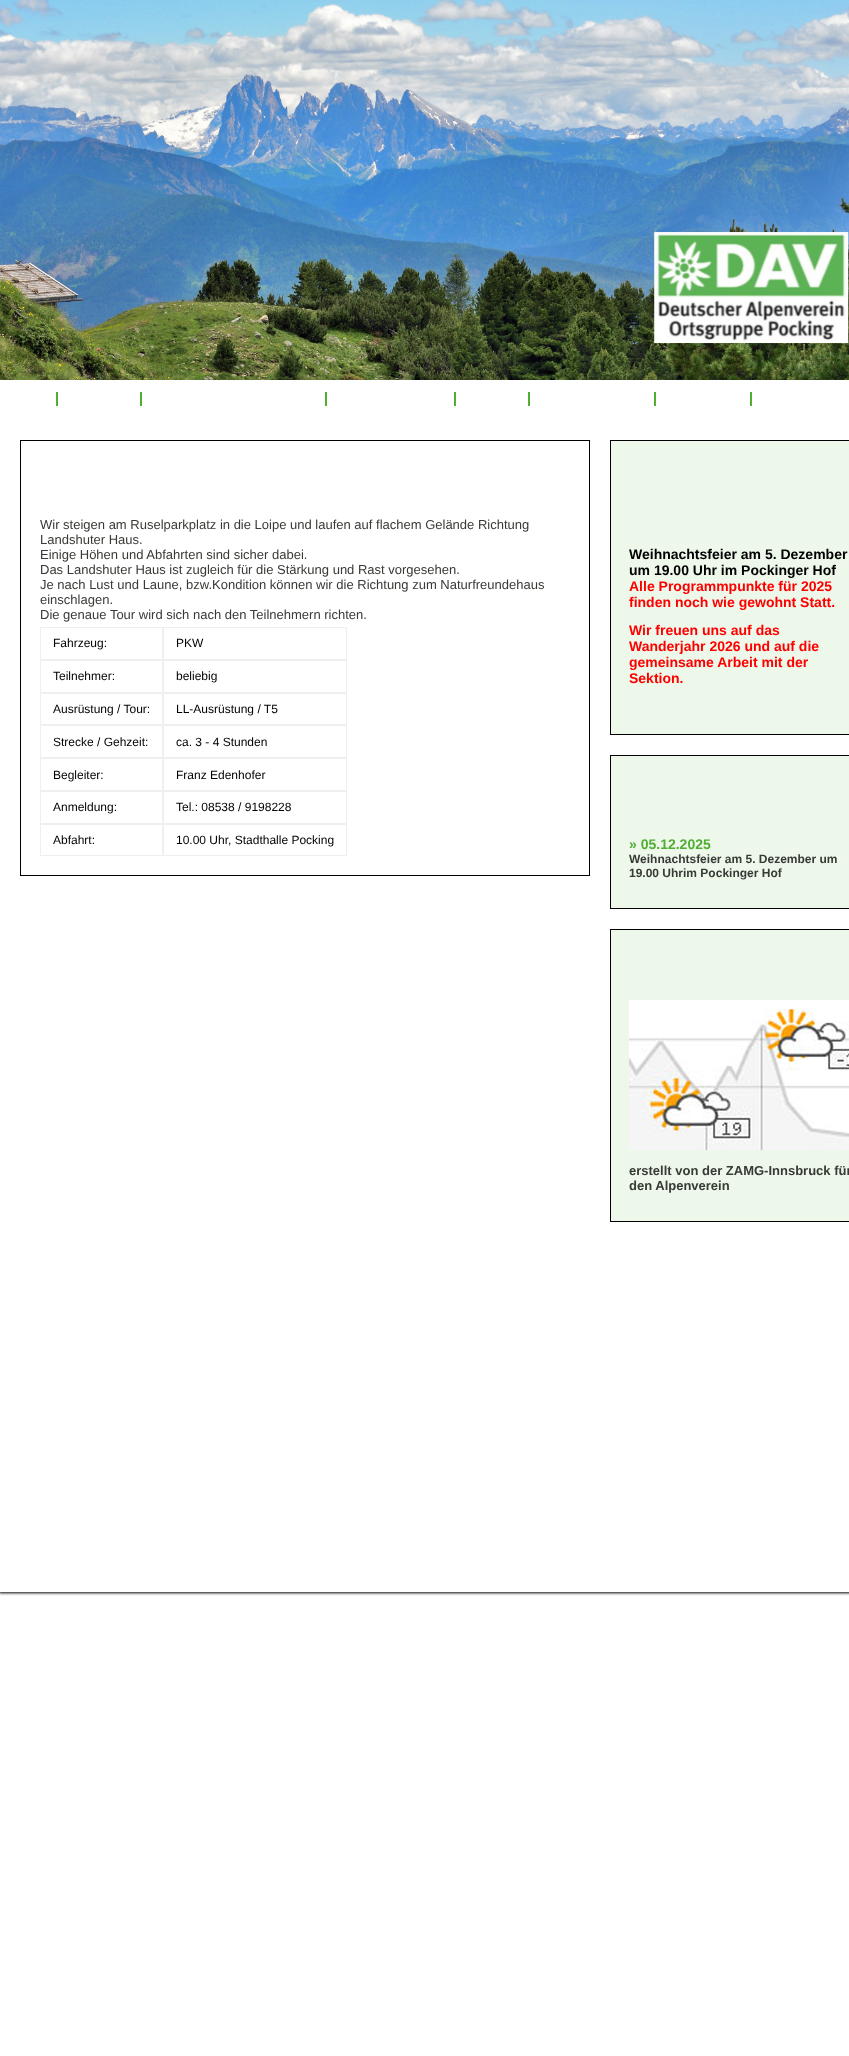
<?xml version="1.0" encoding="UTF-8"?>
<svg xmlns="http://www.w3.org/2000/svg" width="849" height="2056">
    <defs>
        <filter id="blur1" x="-50%" y="-200%" width="200%" height="500%"><feGaussianBlur stdDeviation="1.5"/></filter>
    </defs>
    <rect width="100%" height="100%" fill="#FFFFFF"/>
    <rect x="-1" y="-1" width="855" height="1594" fill="#000000" filter="url(#blur1)"/>
    <rect x="0" y="380" width="849" height="1212" fill="#FFFFFF"/>
    <image x="0" y="0" width="849" height="380" href="img_01.png"/>
    <rect x="56" y="392" width="2" height="14" fill="#50AE32"/>
    <rect x="140" y="392" width="2" height="14" fill="#50AE32"/>
    <rect x="325" y="392" width="2" height="14" fill="#50AE32"/>
    <rect x="454" y="392" width="2" height="14" fill="#50AE32"/>
    <rect x="528" y="392" width="2" height="14" fill="#50AE32"/>
    <rect x="654" y="392" width="2" height="14" fill="#50AE32"/>
    <rect x="750" y="392" width="2" height="14" fill="#50AE32"/>
    <rect x="20.5" y="440.5" width="569" height="435" fill="none" stroke="#000000"/>
    <text font-family="Liberation Sans" font-size="13" fill="#383A35">
        <tspan x="40" y="529">Wir steigen am Ruselparkplatz in die Loipe und laufen auf flachem Gelände Richtung</tspan>
        <tspan x="40" y="544">Landshuter Haus.</tspan>
        <tspan x="40" y="559">Einige Höhen und Abfahrten sind sicher dabei.</tspan>
        <tspan x="40" y="574">Das Landshuter Haus ist zugleich für die Stärkung und Rast vorgesehen.</tspan>
        <tspan x="40" y="589">Je nach Lust und Laune, bzw.Kondition können wir die Richtung zum Naturfreundehaus</tspan>
        <tspan x="40" y="604">einschlagen.</tspan>
        <tspan x="40" y="619">Die genaue Tour wird sich nach den Teilnehmern richten.</tspan>
    </text>
    <rect x="40.5" y="627.5" width="122" height="32" fill="none" stroke="#EFEFEF"/>
    <text x="53" y="647" font-family="Liberation Sans" font-size="12" fill="#000000">Fahrzeug:</text>
    <rect x="163.5" y="627.5" width="183" height="32" fill="none" stroke="#EFEFEF"/>
    <text x="176" y="647" font-family="Liberation Sans" font-size="12" fill="#000000">PKW</text>
    <rect x="40.5" y="660.5" width="122" height="32" fill="none" stroke="#EFEFEF"/>
    <text x="53" y="680" font-family="Liberation Sans" font-size="12" fill="#000000">Teilnehmer:</text>
    <rect x="163.5" y="660.5" width="183" height="32" fill="none" stroke="#EFEFEF"/>
    <text x="176" y="680" font-family="Liberation Sans" font-size="12" fill="#000000">beliebig</text>
    <rect x="40.5" y="693.5" width="122" height="31" fill="none" stroke="#EFEFEF"/>
    <text x="53" y="713" font-family="Liberation Sans" font-size="12" fill="#000000">Ausrüstung / Tour:</text>
    <rect x="163.5" y="693.5" width="183" height="31" fill="none" stroke="#EFEFEF"/>
    <text x="176" y="713" font-family="Liberation Sans" font-size="12" fill="#000000">LL-Ausrüstung / T5</text>
    <rect x="40.5" y="725.5" width="122" height="32" fill="none" stroke="#EFEFEF"/>
    <text x="53" y="746" font-family="Liberation Sans" font-size="12" fill="#000000">Strecke / Gehzeit:</text>
    <rect x="163.5" y="725.5" width="183" height="32" fill="none" stroke="#EFEFEF"/>
    <text x="176" y="746" font-family="Liberation Sans" font-size="12" fill="#000000">ca. 3 - 4 Stunden</text>
    <rect x="40.5" y="758.5" width="122" height="32" fill="none" stroke="#EFEFEF"/>
    <text x="53" y="779" font-family="Liberation Sans" font-size="12" fill="#000000">Begleiter:</text>
    <rect x="163.5" y="758.5" width="183" height="32" fill="none" stroke="#EFEFEF"/>
    <text x="176" y="779" font-family="Liberation Sans" font-size="12" fill="#000000">Franz Edenhofer</text>
    <rect x="40.5" y="791.5" width="122" height="32" fill="none" stroke="#EFEFEF"/>
    <text x="53" y="811" font-family="Liberation Sans" font-size="12" fill="#000000">Anmeldung:</text>
    <rect x="163.5" y="791.5" width="183" height="32" fill="none" stroke="#EFEFEF"/>
    <text x="176" y="811" font-family="Liberation Sans" font-size="12" fill="#000000">Tel.: 08538 / 9198228</text>
    <rect x="40.5" y="824.5" width="122" height="31" fill="none" stroke="#EFEFEF"/>
    <text x="53" y="844" font-family="Liberation Sans" font-size="12" fill="#000000">Abfahrt:</text>
    <rect x="163.5" y="824.5" width="183" height="31" fill="none" stroke="#EFEFEF"/>
    <text x="176" y="844" font-family="Liberation Sans" font-size="12" fill="#000000">10.00 Uhr, Stadthalle Pocking</text>
    <rect x="610.5" y="440.5" width="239" height="294" fill="#EDF8EA" stroke="#000000"/>
    <text font-family="Liberation Sans" font-size="14" font-weight="700" fill="#000000">
        <tspan x="629" y="559">Weihnachtsfeier am 5. Dezember</tspan>
        <tspan x="629" y="575">um 19.00 Uhr im Pockinger Hof</tspan>
    </text>
    <text font-family="Liberation Sans" font-size="14" font-weight="700" fill="#FF0000">
        <tspan x="629" y="591">Alle Programmpunkte für 2025</tspan>
        <tspan x="629" y="607">finden noch wie gewohnt Statt.</tspan>
    </text>
    <text font-family="Liberation Sans" font-size="14" font-weight="700" fill="#FF0000">
        <tspan x="629" y="635">Wir freuen uns auf das</tspan>
        <tspan x="629" y="651">Wanderjahr 2026 und auf die</tspan>
        <tspan x="629" y="667">gemeinsame Arbeit mit der</tspan>
        <tspan x="629" y="683">Sektion.</tspan>
    </text>
    <rect x="610.5" y="755.5" width="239" height="153" fill="#EDF8EA" stroke="#000000"/>
    <text x="629" y="849" font-family="Liberation Sans" font-size="14" font-weight="700" fill="#50AE32">» 05.12.2025</text>
    <text font-family="Liberation Sans" font-size="12" font-weight="700" fill="#383A35">
        <tspan x="629" y="863">Weihnachtsfeier am 5. Dezember um</tspan>
        <tspan x="629" y="877">19.00 Uhrim Pockinger Hof</tspan>
    </text>
    <rect x="610.5" y="929.5" width="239" height="292" fill="#EDF8EA" stroke="#000000"/>
    <image x="629" y="1000" width="220" height="150" href="img_02.png"/>
    <text font-family="Liberation Sans" font-size="13" font-weight="700" fill="#383A35">
        <tspan x="629" y="1175">erstellt von der ZAMG-Innsbruck für</tspan>
        <tspan x="629" y="1190">den Alpenverein</tspan>
    </text>
</svg>
